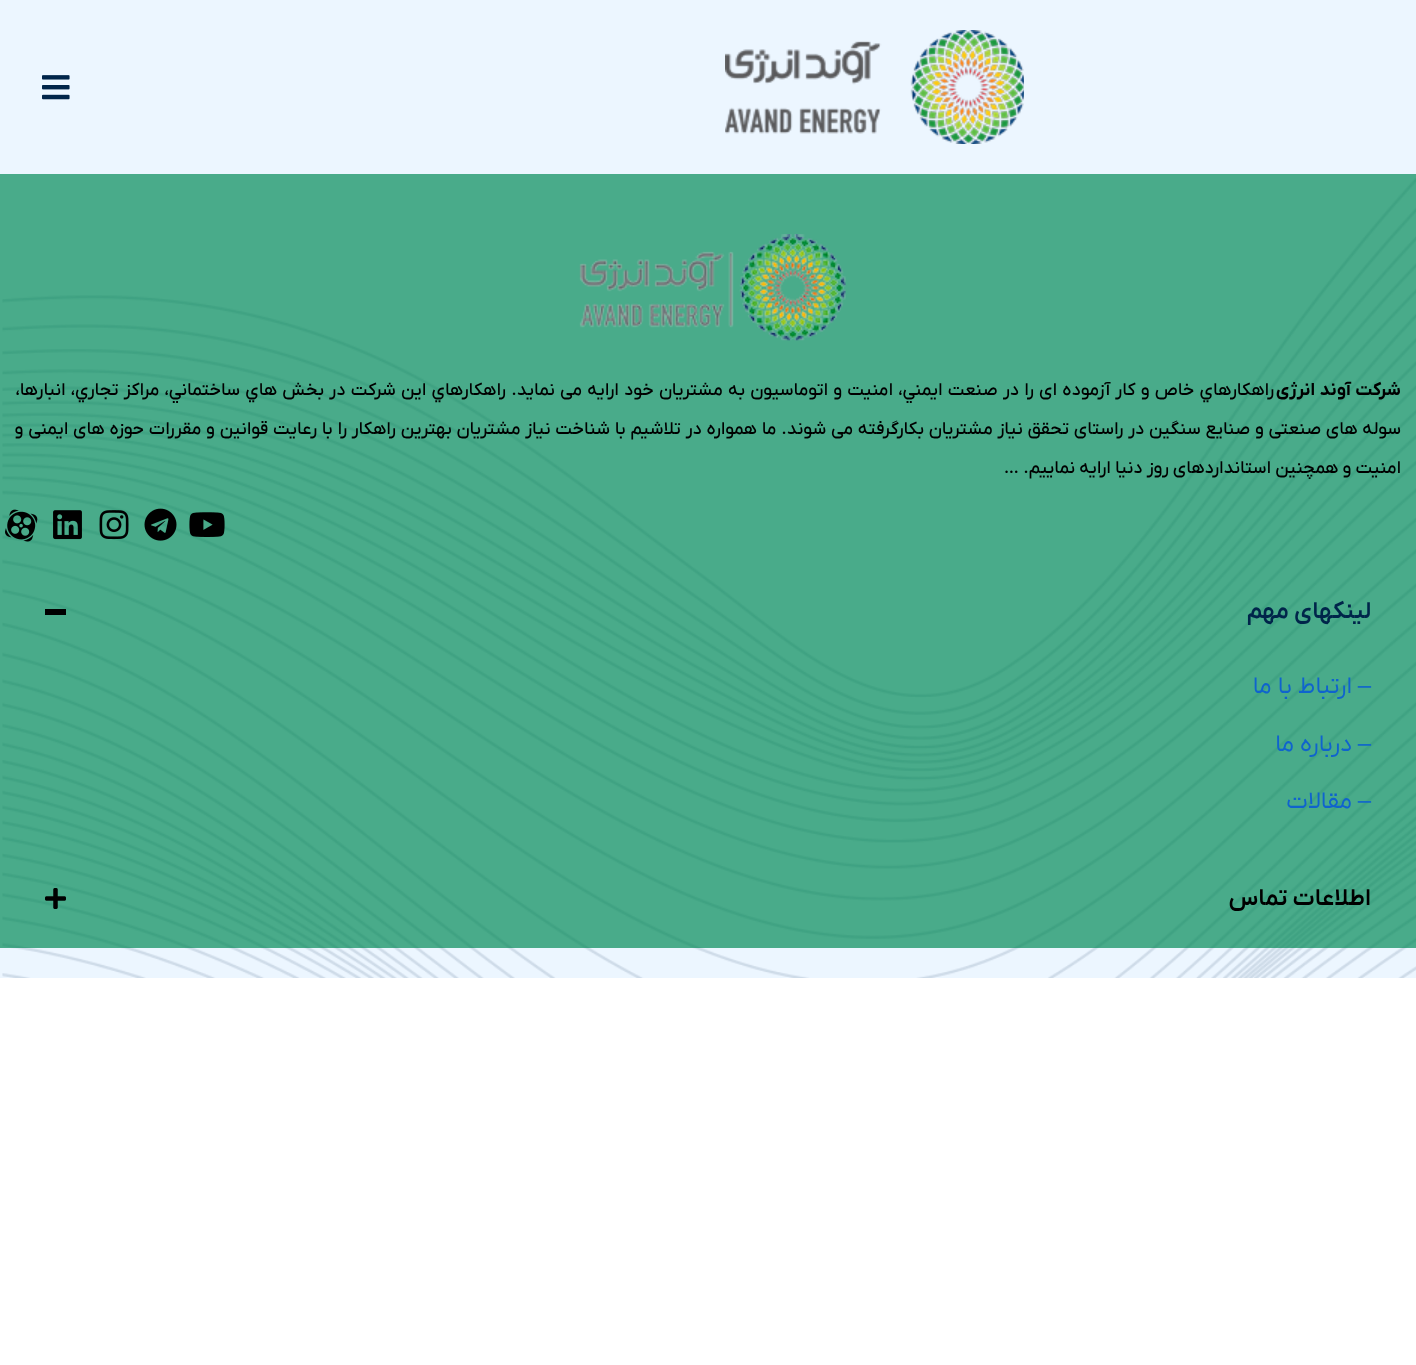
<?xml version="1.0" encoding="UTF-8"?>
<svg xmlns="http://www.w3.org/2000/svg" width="1416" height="1365">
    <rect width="100%" height="100%" fill="#FFFFFF"/>
    <rect x="0" y="0" width="1416" height="174" fill="#ECF6FF"/>
    <image x="725" y="30" width="299" height="114" href="img_01.png"/>
    <image x="42" y="75" width="28" height="25" href="img_02.png"/>
    <rect x="0" y="948" width="1416" height="30" fill="#ECF6FF"/>
    <rect x="0" y="174" width="1416" height="774" fill="#49AB8A"/>
    <image x="2" y="178" width="1414" height="800" href="img_03.png"/>
    <image x="579" y="234" width="267" height="107" href="img_04.png"/>
    <text x="1401" y="395" word-spacing="1" font-family="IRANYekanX" font-size="18" font-weight="700" direction="rtl" fill="#000000">شرکت آوند انرژی</text>
    <text x="1274" y="395" word-spacing="1.1" font-family="IRANYekanX" font-size="18" font-weight="500" direction="rtl" fill="#000000">راهکارهاي خاص و کار آزموده ای را در صنعت ايمني، امنیت و اتوماسيون به مشتریان خود ارایه می نماید. راهکارهاي اين شرکت در بخش هاي ساختماني، مراکز تجاري، انبارها،</text>
    <text x="1401" y="434" word-spacing="0.65" font-family="IRANYekanX" font-size="18" font-weight="500" direction="rtl" fill="#000000">سوله های صنعتی و صنايع سنگين در راستای تحقق نیاز مشتریان بکارگرفته می شوند. ما همواره در تلاشیم با شناخت نیاز مشتریان بهترین راهکار را با رعایت قوانین و مقررات حوزه های ایمنی و</text>
    <text x="1401" y="473" font-family="IRANYekanX" font-size="18" font-weight="500" direction="rtl" fill="#000000">امنیت و همچنین استانداردهای روز دنیا ارایه نماییم. …</text>
    <image x="189" y="512" width="36" height="25" href="img_05.png"/>
    <image x="144" y="508" width="33" height="33" href="img_06.png"/>
    <image x="99" y="510" width="30" height="30" href="img_07.png"/>
    <image x="53" y="510" width="29" height="30" href="img_08.png"/>
    <image x="5" y="509" width="33" height="33" href="img_09.png"/>
    <text x="1371" y="618" font-family="IRANYekanX" font-size="24" font-weight="600" direction="rtl" fill="#00254A">لینکهای مهم</text>
    <rect x="45" y="609" width="21" height="6" fill="#000000"/>
    <text x="1371" y="693" font-family="Liberation Sans" font-size="24" direction="rtl" fill="#0F63CE">–</text>
    <text x="1352" y="693" font-family="IRANYekanX" font-size="24" direction="rtl" fill="#0F63CE">ارتباط با ما</text>
    <text x="1371" y="751" font-family="Liberation Sans" font-size="24" direction="rtl" fill="#0F63CE">–</text>
    <text x="1352" y="751" font-family="IRANYekanX" font-size="24" direction="rtl" fill="#0F63CE">درباره ما</text>
    <text x="1371" y="808" font-family="Liberation Sans" font-size="24" direction="rtl" fill="#0F63CE">–</text>
    <text x="1352" y="808" font-family="IRANYekanX" font-size="24" direction="rtl" fill="#0F63CE">مقالات</text>
    <text x="1371" y="905" font-family="IRANYekanX" font-size="24" font-weight="600" direction="rtl" fill="#000000">اطلاعات تماس</text>
    <image x="45" y="888" width="21" height="21" href="img_10.png"/>
</svg>
